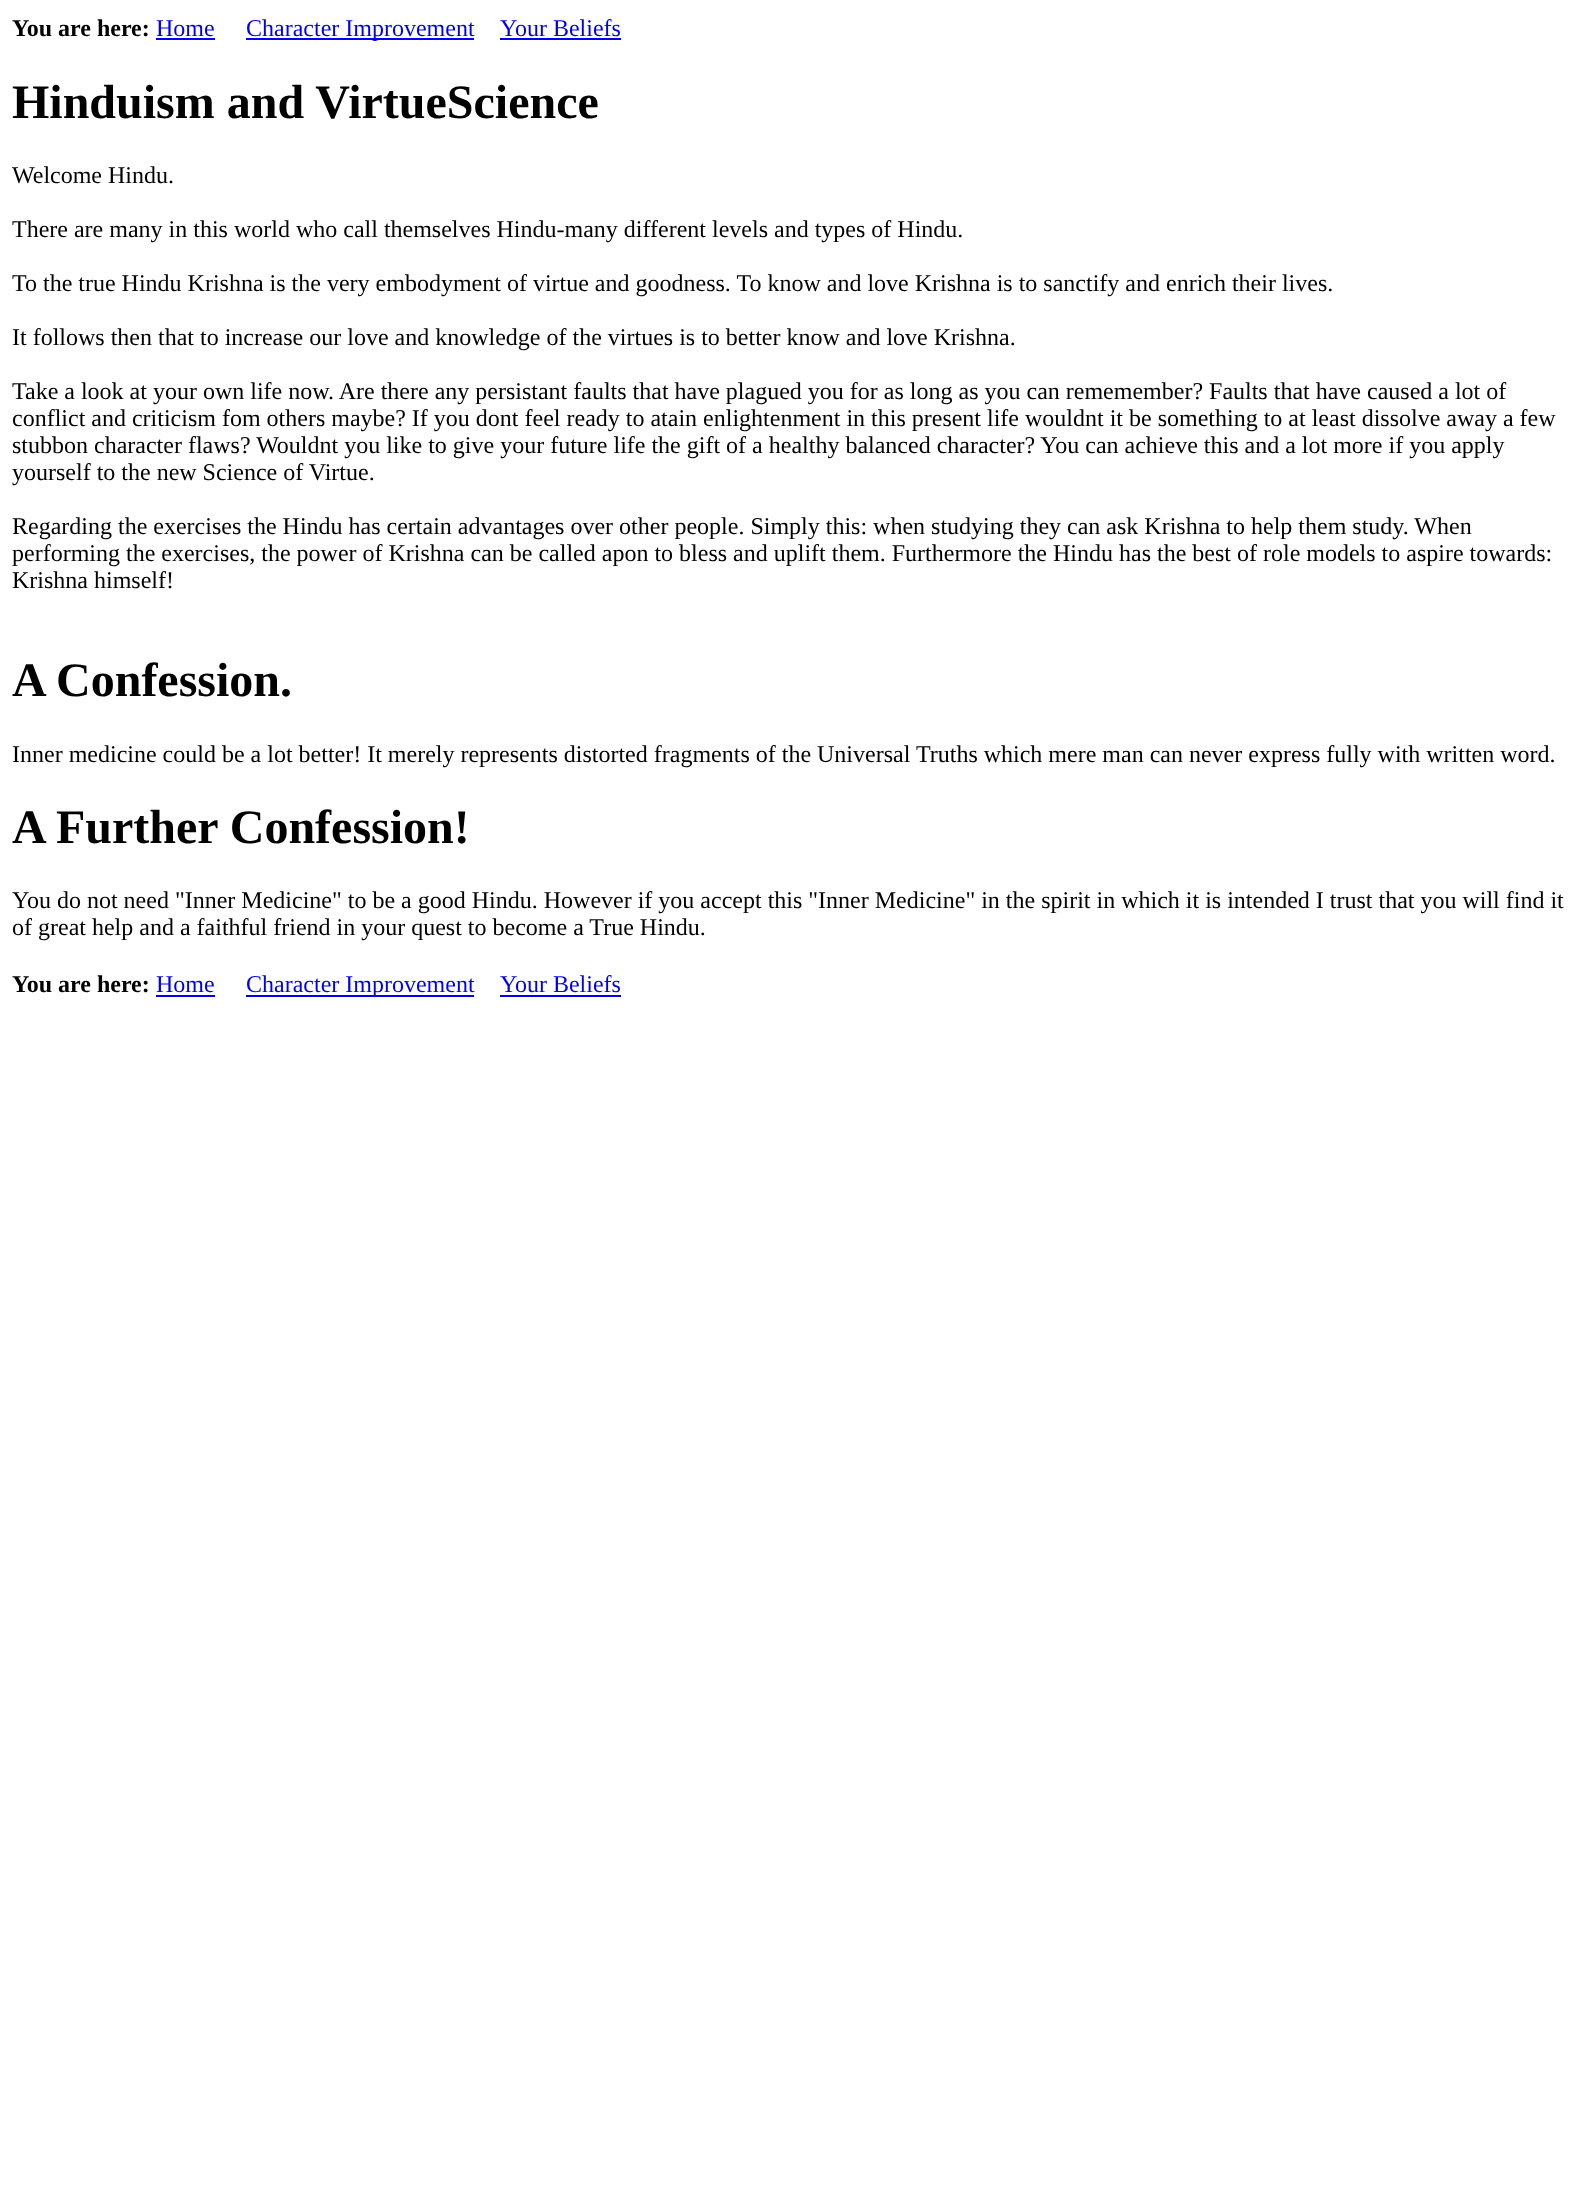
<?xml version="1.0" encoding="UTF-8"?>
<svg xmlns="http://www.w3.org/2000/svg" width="1592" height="2193">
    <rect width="100%" height="100%" fill="#FFFFFF"/>
    <text x="12" y="36" font-family="Liberation Serif" font-size="24" font-weight="700" fill="#000000">You are here:</text>
    <text x="156" y="36" font-family="Liberation Serif" font-size="24" fill="#0000EE">Home</text>
    <rect x="156" y="38" width="59" height="2" fill="#0000EE"/>
    <rect x="246" y="38" width="228" height="2" fill="#0000EE"/>
    <text x="246" y="36" font-family="Liberation Serif" font-size="24" fill="#0000EE">Character Improvement</text>
    <text x="500" y="36" font-family="Liberation Serif" font-size="24" fill="#0000EE">Your Beliefs</text>
    <rect x="500" y="38" width="121" height="2" fill="#0000EE"/>
    <text x="12" y="118" font-family="Liberation Serif" font-size="48" font-weight="700" fill="#000000">Hinduism and VirtueScience</text>
    <text x="12" y="183" font-family="Liberation Serif" font-size="24" fill="#000000">Welcome Hindu.</text>
    <text x="12" y="237" font-family="Liberation Serif" font-size="24" fill="#000000">There are many in this world who call themselves Hindu-many different levels and types of Hindu.</text>
    <text x="12" y="291" font-family="Liberation Serif" font-size="24" fill="#000000">To the true Hindu Krishna is the very embodyment of virtue and goodness. To know and love Krishna is to sanctify and enrich their lives.</text>
    <text x="12" y="345" font-family="Liberation Serif" font-size="24" fill="#000000">It follows then that to increase our love and knowledge of the virtues is to better know and love Krishna.</text>
    <text font-family="Liberation Serif" font-size="24" fill="#000000">
        <tspan x="12" y="399">Take a look at your own life now. Are there any persistant faults that have plagued you for as long as you can rememember? Faults that have caused a lot of</tspan>
        <tspan x="12" y="426">conflict and criticism fom others maybe? If you dont feel ready to atain enlightenment in this present life wouldnt it be something to at least dissolve away a few</tspan>
        <tspan x="12" y="453">stubbon character flaws? Wouldnt you like to give your future life the gift of a healthy balanced character? You can achieve this and a lot more if you apply</tspan>
        <tspan x="12" y="480">yourself to the new Science of Virtue.</tspan>
    </text>
    <text font-family="Liberation Serif" font-size="24" fill="#000000">
        <tspan x="12" y="534">Regarding the exercises the Hindu has certain advantages over other people. Simply this: when studying they can ask Krishna to help them study. When</tspan>
        <tspan x="12" y="561">performing the exercises, the power of Krishna can be called apon to bless and uplift them. Furthermore the Hindu has the best of role models to aspire towards:</tspan>
        <tspan x="12" y="588">Krishna himself!</tspan>
    </text>
    <text x="12" y="696" font-family="Liberation Serif" font-size="48" font-weight="700" fill="#000000">A Confession.</text>
    <text x="12" y="762" font-family="Liberation Serif" font-size="24" fill="#000000">Inner medicine could be a lot better! It merely represents distorted fragments of the Universal Truths which mere man can never express fully with written word.</text>
    <text x="12" y="843" font-family="Liberation Serif" font-size="48" font-weight="700" fill="#000000">A Further Confession!</text>
    <text font-family="Liberation Serif" font-size="24" fill="#000000">
        <tspan x="12" y="908">You do not need "Inner Medicine" to be a good Hindu. However if you accept this "Inner Medicine" in the spirit in which it is intended I trust that you will find it</tspan>
        <tspan x="12" y="935">of great help and a faithful friend in your quest to become a True Hindu.</tspan>
    </text>
    <text x="12" y="992" font-family="Liberation Serif" font-size="24" font-weight="700" fill="#000000">You are here:</text>
    <text x="156" y="992" font-family="Liberation Serif" font-size="24" fill="#0000EE">Home</text>
    <rect x="156" y="995" width="59" height="2" fill="#0000EE"/>
    <rect x="246" y="995" width="228" height="2" fill="#0000EE"/>
    <text x="246" y="992" font-family="Liberation Serif" font-size="24" fill="#0000EE">Character Improvement</text>
    <text x="500" y="992" font-family="Liberation Serif" font-size="24" fill="#0000EE">Your Beliefs</text>
    <rect x="500" y="995" width="121" height="2" fill="#0000EE"/>
</svg>
